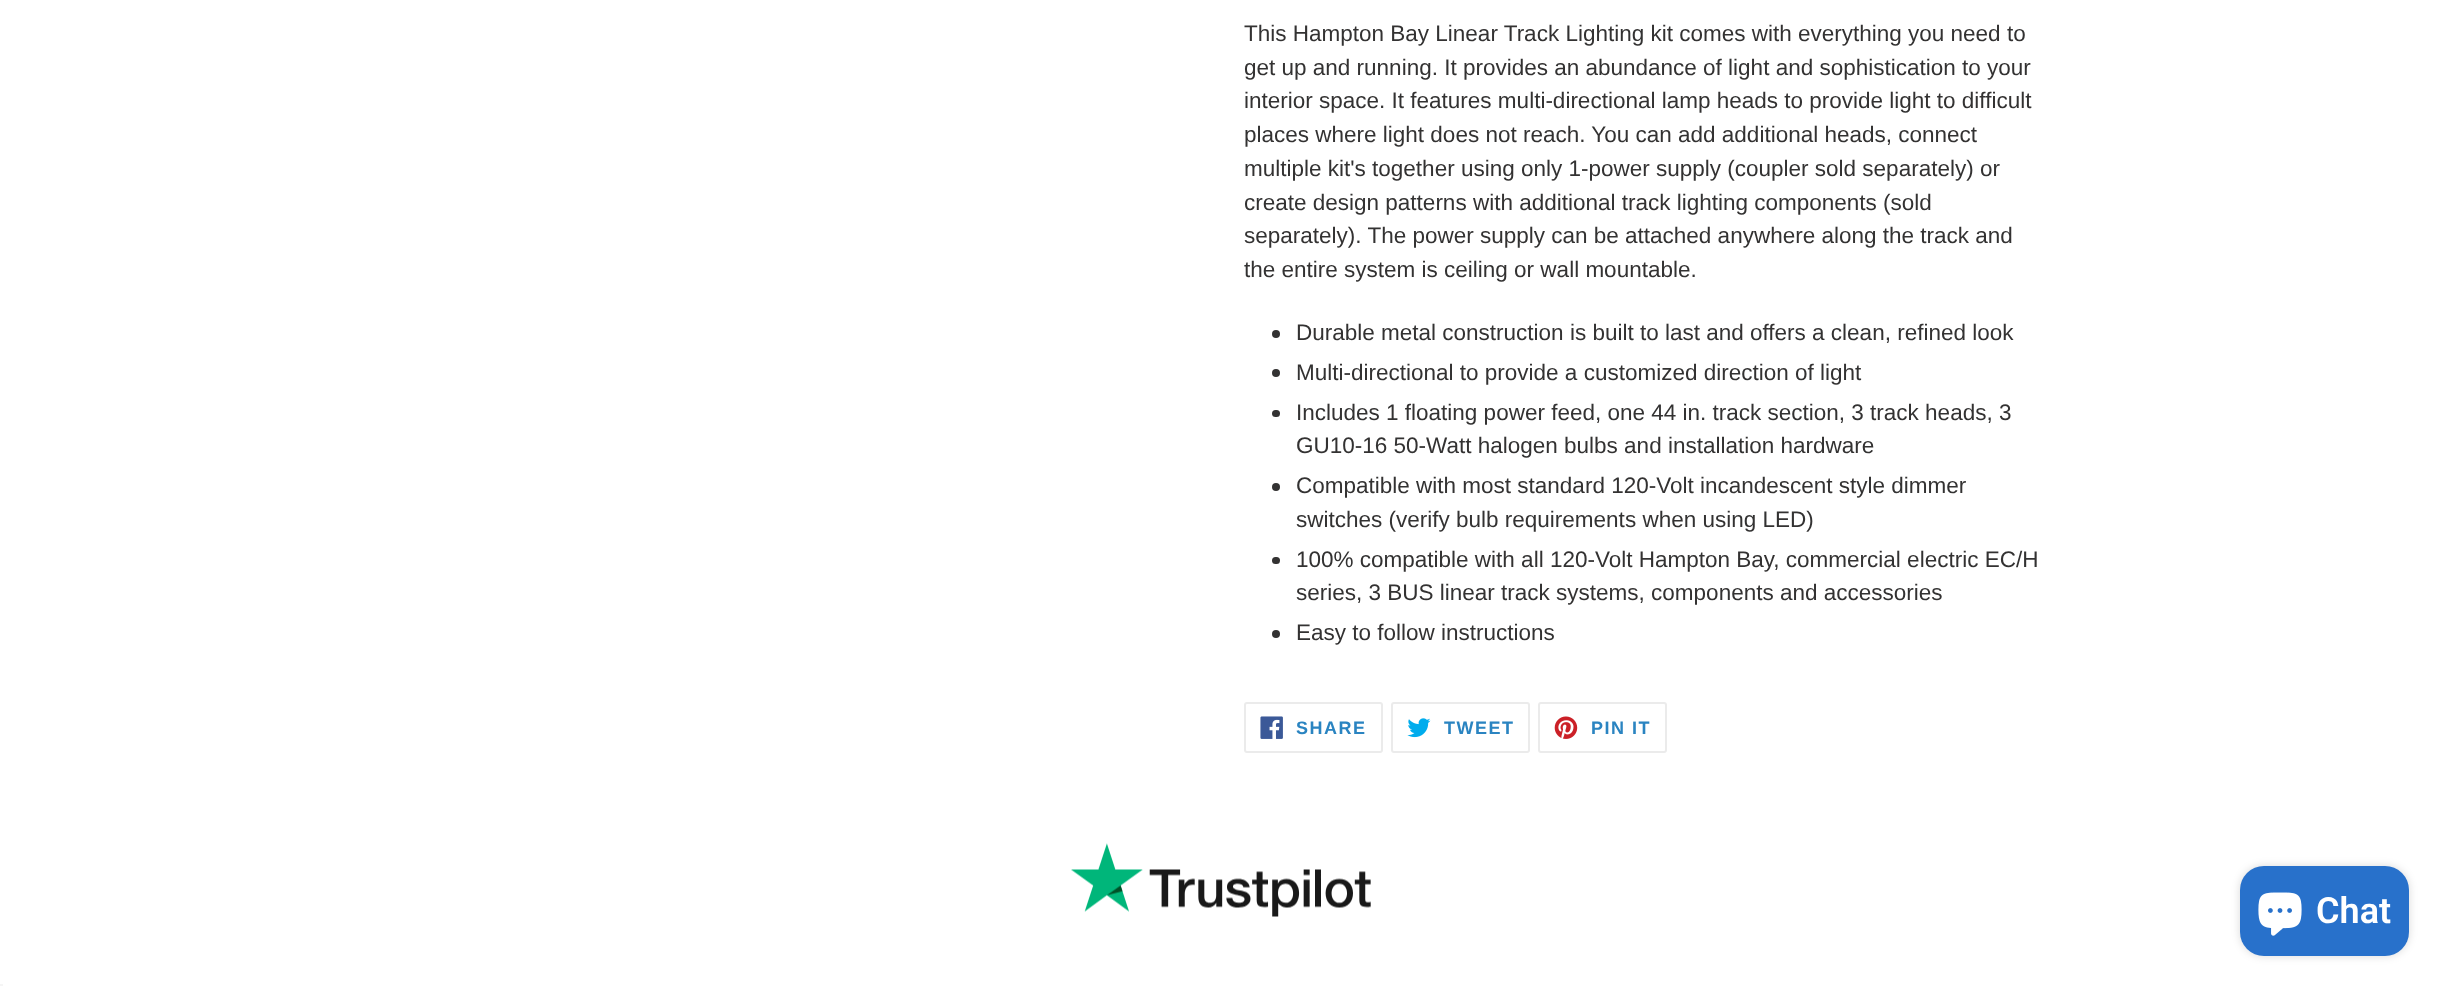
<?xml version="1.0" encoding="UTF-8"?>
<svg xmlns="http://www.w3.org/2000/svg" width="2442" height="986">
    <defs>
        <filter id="blur1" x="-50%" y="-200%" width="200%" height="500%"><feGaussianBlur stdDeviation="4"/></filter>
    </defs>
    <rect width="100%" height="100%" fill="#FFFFFF"/>
    <text font-family="Liberation Sans" font-size="22.5" fill="#333232">
        <tspan x="1244" y="41">This Hampton Bay Linear Track Lighting kit comes with everything you need to</tspan>
        <tspan x="1244" y="75">get up and running. It provides an abundance of light and sophistication to your</tspan>
        <tspan x="1244" y="108">interior space. It features multi-directional lamp heads to provide light to difficult</tspan>
        <tspan x="1244" y="142">places where light does not reach. You can add additional heads, connect</tspan>
        <tspan x="1244" y="176">multiple kit's together using only 1-power supply (coupler sold separately) or</tspan>
        <tspan x="1244" y="210">create design patterns with additional track lighting components (sold</tspan>
        <tspan x="1244" y="243">separately). The power supply can be attached anywhere along the track and</tspan>
        <tspan x="1244" y="277">the entire system is ceiling or wall mountable.</tspan>
    </text>
    <circle cx="1276" cy="334" r="4" fill="#333232"/>
    <text x="1296" y="340" font-family="Liberation Sans" font-size="22.5" fill="#333232">Durable metal construction is built to last and offers a clean, refined look</text>
    <circle cx="1276" cy="373" r="4" fill="#333232"/>
    <text x="1296" y="380" font-family="Liberation Sans" font-size="22.5" fill="#333232">Multi-directional to provide a customized direction of light</text>
    <rect x="1272" y="410" width="8" height="7" rx="3.5" fill="#333232"/>
    <text font-family="Liberation Sans" font-size="22.5" fill="#333232">
        <tspan x="1296" y="420">Includes 1 floating power feed, one 44 in. track section, 3 track heads, 3</tspan>
        <tspan x="1296" y="453">GU10-16 50-Watt halogen bulbs and installation hardware</tspan>
    </text>
    <circle cx="1276" cy="487" r="4" fill="#333232"/>
    <text font-family="Liberation Sans" font-size="22.5" fill="#333232">
        <tspan x="1296" y="493">Compatible with most standard 120-Volt incandescent style dimmer</tspan>
        <tspan x="1296" y="527">switches (verify bulb requirements when using LED)</tspan>
    </text>
    <rect x="1272" y="557" width="8" height="7" rx="3.5" fill="#333232"/>
    <text font-family="Liberation Sans" font-size="22.5" fill="#333232">
        <tspan x="1296" y="567">100% compatible with all 120-Volt Hampton Bay, commercial electric EC/H</tspan>
        <tspan x="1296" y="600">series, 3 BUS linear track systems, components and accessories</tspan>
    </text>
    <circle cx="1276" cy="634" r="4" fill="#333232"/>
    <text x="1296" y="640" font-family="Liberation Sans" font-size="22.5" fill="#333232">Easy to follow instructions</text>
    <rect x="1245" y="703" width="137" height="49" rx="2" fill="none" stroke="#EBEBEB" stroke-width="2"/>
    <image x="1260" y="716" width="23" height="23" href="img_01.png"/>
    <text x="1296" y="734" font-family="Liberation Sans" font-size="18" font-weight="700" letter-spacing="1.5" fill="#2A84C1">SHARE</text>
    <rect x="1392" y="703" width="137" height="49" rx="2" fill="none" stroke="#EBEBEB" stroke-width="2"/>
    <image x="1407" y="718" width="24" height="20" href="img_02.png"/>
    <text x="1444" y="734" font-family="Liberation Sans" font-size="18" font-weight="700" letter-spacing="1.5" fill="#2A84C1">TWEET</text>
    <rect x="1539" y="703" width="127" height="49" rx="2" fill="none" stroke="#EBEBEB" stroke-width="2"/>
    <image x="1554" y="716" width="24" height="23" href="img_03.png"/>
    <text x="1591" y="734" font-family="Liberation Sans" font-size="18" font-weight="700" letter-spacing="1.5" fill="#2A84C1">PIN IT</text>
    <image x="1071" y="843" width="300" height="74" href="img_04.png"/>
    <rect x="2240" y="866" width="169" height="90" rx="24" fill="#000000" fill-opacity="0.15" filter="url(#blur1)"/>
    <rect x="2240" y="866" width="169" height="90" rx="24" fill="#2871CB"/>
    <image x="2258" y="892" width="44" height="44" href="img_05.png"/>
    <text x="2316" y="923" font-family="Roboto" font-size="36" font-weight="600" fill="#FFFFFF">Chat</text>
    <rect x="0" y="984" width="3" height="2" fill="#F5F5F5"/>
</svg>
